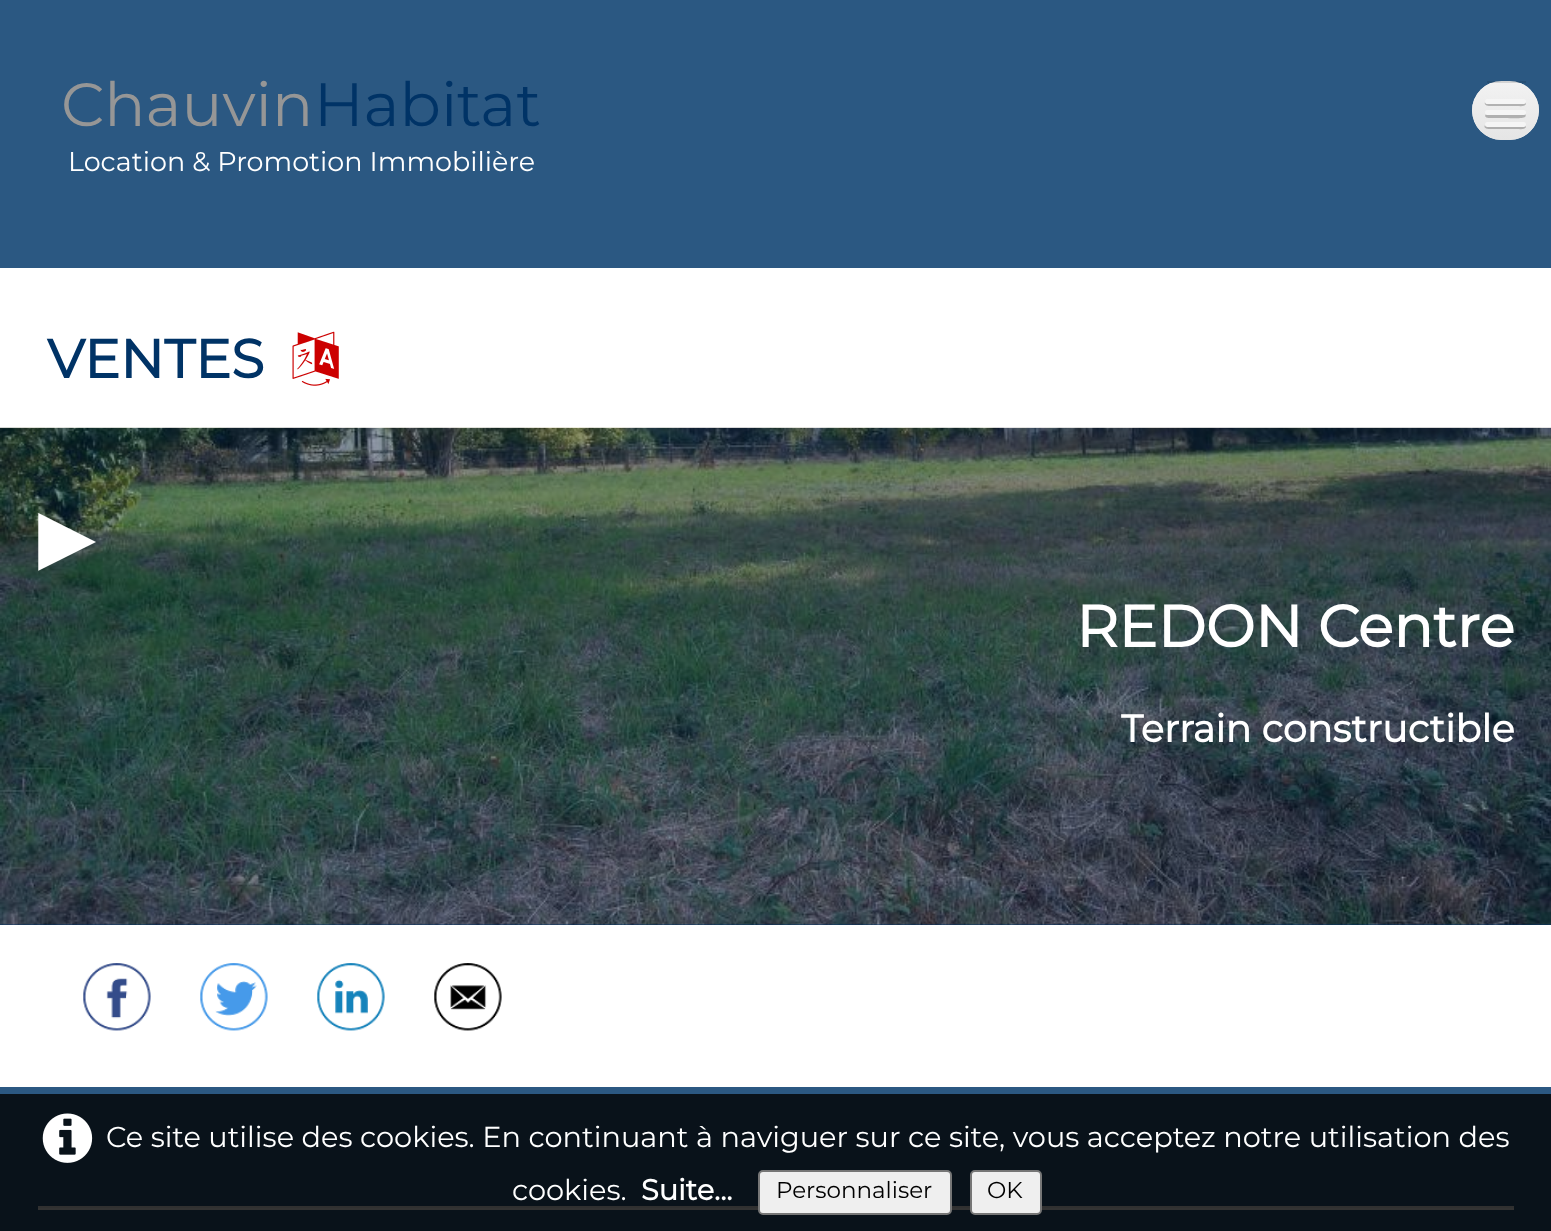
<?xml version="1.0" encoding="UTF-8"?>
<svg xmlns="http://www.w3.org/2000/svg" width="1551" height="1231">
    <defs>
        <clipPath id="clip1"><rect x="1472" y="81" width="67" height="59" rx="29.5"/></clipPath>
        <linearGradient id="g1" gradientUnits="userSpaceOnUse" x1="1505" y1="83" x2="1505" y2="140"><stop offset="0" stop-color="#F2F2F2"/><stop offset="1" stop-color="#E5E5E5"/></linearGradient>
    </defs>
    <rect width="100%" height="100%" fill="#FFFFFF"/>
    <rect x="0" y="0" width="1551" height="268" fill="#2B5882"/>
    <text x="61" y="126" font-family="Montserrat" font-size="61" font-weight="100" fill="#969696">Chauvin</text>
    <text x="314" y="126" font-family="Montserrat" font-size="61" font-weight="100" fill="#003366">Habitat</text>
    <text x="68" y="171" font-family="Montserrat" font-size="27" font-weight="100" fill="#FFFFFF">Location &amp; Promotion Immobilière</text>
    <rect x="1472" y="81" width="67" height="59" rx="29.5" fill="#EDEDED"/>
    <g clip-path="url(#clip1)">
        <path d="M 1472 83 H 1539 V 110.5 C 1539 127 1526 140 1509.5 140 H 1501.5 C 1485 140 1472 127 1472 110.5 Z" fill="url(#g1)"/>
    </g>
    <rect x="1487" y="81" width="39" height="2" fill="#000000" fill-opacity="0.1"/>
    <path d="M 1485 102 C 1483 107 1493 106 1494 106 H 1518 C 1519 106 1525 107 1526 104 L 1525 102 C 1525 103 1524 104 1523 104 H 1487 C 1486 104 1486 103 1485 102 Z" fill="#B2B2B2"/>
    <rect x="1485" y="99" width="41" height="5" rx="2.5" fill="#F5F5F5"/>
    <path d="M 1486 114 C 1482 119 1493 118 1494 118 H 1506 C 1509 118 1523 119 1525 117 C 1526 116 1526 115 1525 114 L 1524 115 H 1487 Z" fill="#B0B0B0"/>
    <rect x="1485" y="110" width="41" height="5" rx="2.5" fill="#F5F5F5"/>
    <path d="M 1485 125 C 1482 130 1493 129 1494 129 H 1518 C 1519 129 1525 130 1526 127 L 1525 125 L 1524 126 H 1487 Z" fill="#AEAEAE"/>
    <rect x="1485" y="122" width="41" height="5" rx="2.5" fill="#F5F5F5"/>
    <text x="47" y="378" font-family="Montserrat" font-size="54" font-weight="700" fill="#003366">VENTES</text>
    <image x="292" y="331" width="47" height="55" href="img_01.png"/>
    <rect x="0" y="428" width="1551" height="497" fill="#003366"/>
    <image x="0" y="427" width="1551" height="498" href="img_02.png"/>
    <text x="38" y="571" font-family="DejaVu Sans" font-size="106" font-weight="700" fill="#FFFFFF">▸</text>
    <text x="1076" y="647" font-family="Montserrat" font-size="58.5" font-weight="700" fill="#FFFFFF">REDON Centre</text>
    <text x="1121" y="742" font-family="Montserrat" font-size="38.25" font-weight="700" fill="#FFFFFF">Terrain constructible</text>
    <image x="83" y="963" width="68" height="68" href="img_03.png"/>
    <image x="200" y="963" width="68" height="68" href="img_04.png"/>
    <image x="317" y="963" width="68" height="68" href="img_05.png"/>
    <image x="434" y="963" width="68" height="68" href="img_06.png"/>
    <rect x="0" y="1087" width="1551" height="7" fill="#2B5882"/>
    <rect x="0" y="1094" width="1551" height="137" fill="#09121A"/>
    <rect x="38" y="1206" width="1476" height="2" fill="#303030"/>
    <rect x="38" y="1208" width="1476" height="2" fill="#333333"/>
    <image x="42" y="1113" width="51" height="50" href="img_07.png"/>
    <text x="106" y="1147" font-family="Montserrat" font-size="28.8" font-weight="100" fill="#FFFFFF">Ce site utilise des cookies. En continuant à naviguer sur ce site, vous acceptez notre utilisation des</text>
    <text x="512" y="1200" font-family="Montserrat" font-size="28.8" font-weight="100" fill="#FFFFFF">cookies.</text>
    <text x="641" y="1200" font-family="Montserrat" font-size="28.8" font-weight="700" fill="#FFFFFF">Suite...</text>
    <rect x="759" y="1171" width="192" height="43" rx="4" fill="#EFEFEF" stroke="#767676" stroke-width="2"/>
    <text x="776" y="1198" font-family="Montserrat" font-size="23" font-weight="100" fill="#000000">Personnaliser</text>
    <rect x="971" y="1171" width="70" height="43" rx="4" fill="#EFEFEF" stroke="#767676" stroke-width="2"/>
    <text x="987" y="1198" font-family="Montserrat" font-size="23" font-weight="100" fill="#000000">OK</text>
</svg>
